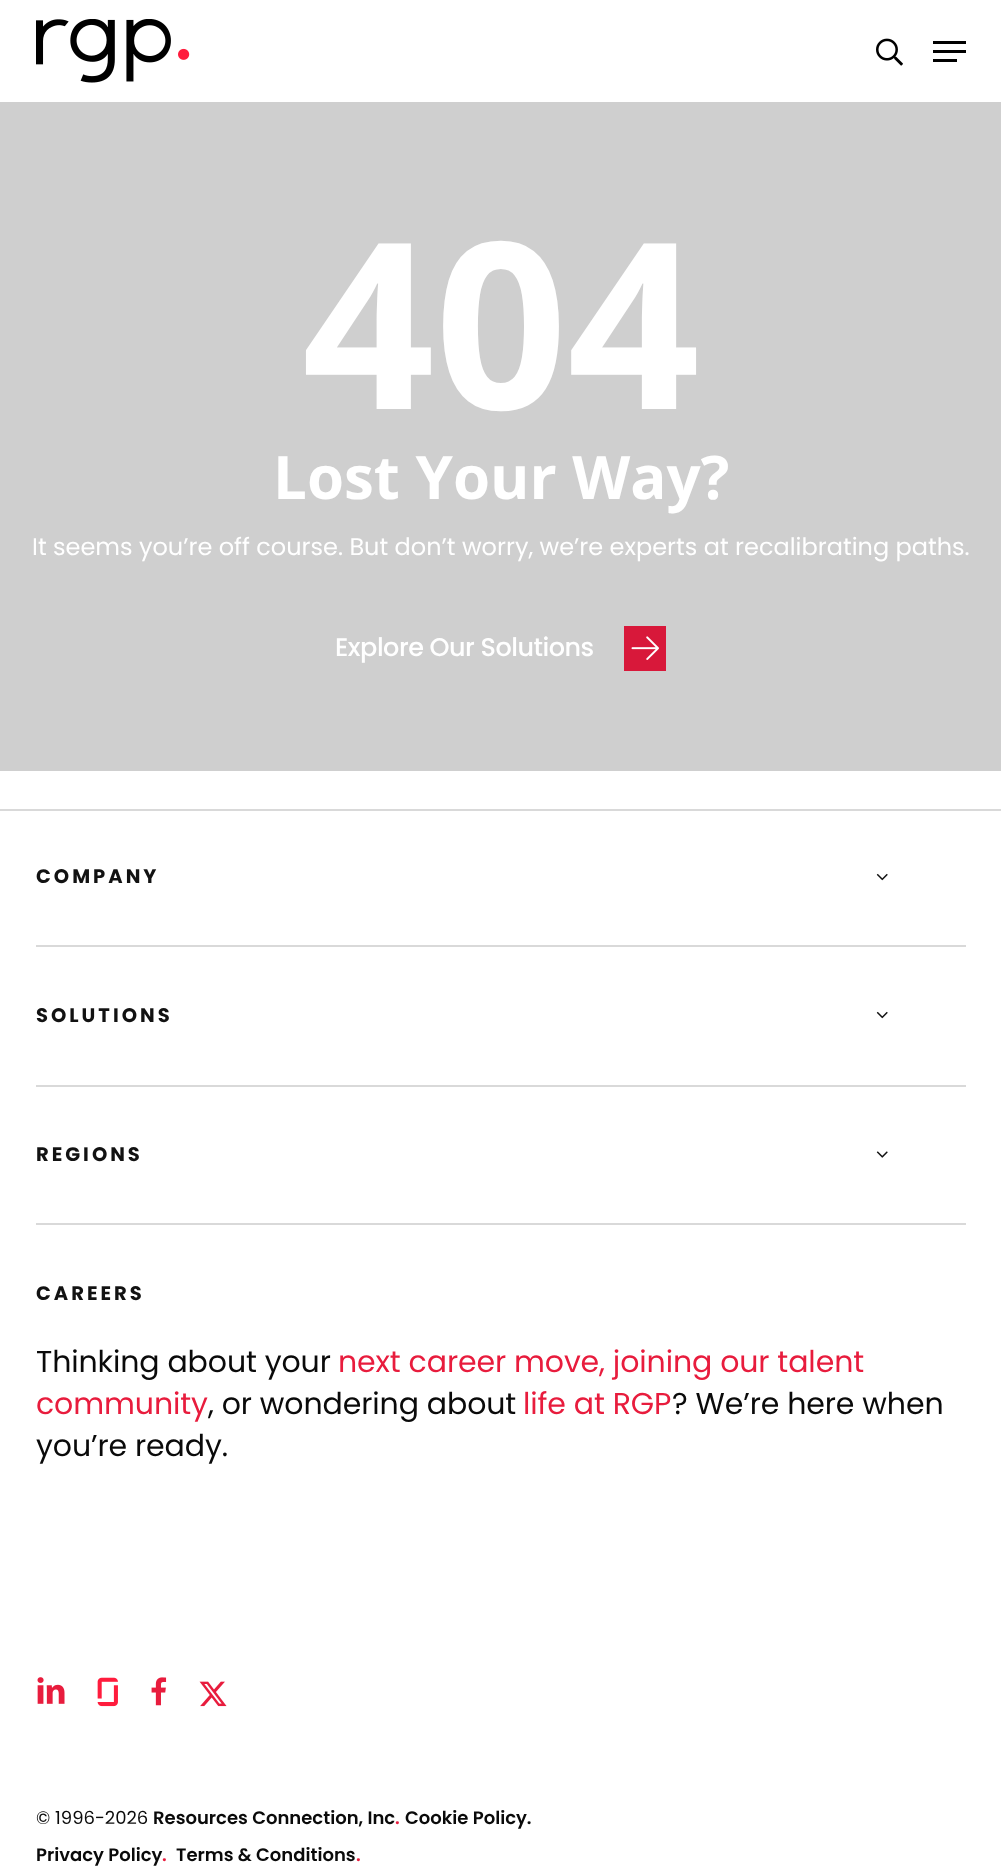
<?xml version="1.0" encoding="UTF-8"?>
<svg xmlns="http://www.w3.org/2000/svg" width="1001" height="1872">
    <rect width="100%" height="100%" fill="#FFFFFF"/>
    <image x="36" y="19" width="154" height="64" href="img_01.png"/>
    <image x="876" y="38" width="27" height="28" href="img_02.png"/>
    <rect x="933" y="41" width="33" height="3" fill="#000000"/>
    <rect x="933" y="59" width="24" height="3" fill="#000000"/>
    <rect x="933" y="50" width="33" height="3" fill="#000000"/>
    <rect x="0" y="102" width="1001" height="669" fill="#CFCFCF"/>
    <text x="302" y="409" font-family="Open Sans" font-size="232" font-weight="700" fill="#FFFFFF">404</text>
    <text x="273" y="499" font-family="Open Sans" font-size="60" font-weight="700" fill="#FFFFFF">Lost Your Way?</text>
    <text x="32" y="555" font-family="Poppins" font-size="24" fill="#FFFFFF">It seems you’re off course. But don’t worry, we’re experts at recalibrating paths.</text>
    <text x="335" y="656" font-family="Poppins" font-size="25.5" font-weight="500" letter-spacing="-0.5" fill="#FFFFFF">Explore Our Solutions</text>
    <rect x="624" y="626" width="42" height="45" fill="#D8183A"/>
    <image x="631" y="636" width="28" height="24" href="img_03.png"/>
    <rect x="0" y="809" width="1001" height="2" fill="#D9D9D9"/>
    <rect x="36" y="945" width="930" height="2" fill="#D9D9D9"/>
    <text x="36" y="883" font-family="Poppins" font-size="19.5" font-weight="700" letter-spacing="3" fill="#121212">COMPANY</text>
    <image x="876" y="873" width="12" height="8" href="img_04.png"/>
    <rect x="36" y="1085" width="930" height="2" fill="#D9D9D9"/>
    <text x="36" y="1022" font-family="Poppins" font-size="19.5" font-weight="700" letter-spacing="3" fill="#121212">SOLUTIONS</text>
    <image x="876" y="1011" width="12" height="8" href="img_04.png"/>
    <rect x="36" y="1223" width="930" height="2" fill="#D9D9D9"/>
    <text x="36" y="1161" font-family="Poppins" font-size="19.5" font-weight="700" letter-spacing="3" fill="#121212">REGIONS</text>
    <image x="876" y="1151" width="12" height="7" href="img_05.png"/>
    <text x="36" y="1300" font-family="Poppins" font-size="19.5" font-weight="700" letter-spacing="3" fill="#121212">CAREERS</text>
    <text x="36" y="1372" font-family="Poppins" font-size="30" letter-spacing="-0.1" fill="#0A0A0A">Thinking about your</text>
    <text x="338" y="1372" font-family="Poppins" font-size="30" letter-spacing="-0.1" fill="#E81C3D">next career move, joining our talent</text>
    <text x="36" y="1414" font-family="Poppins" font-size="30" letter-spacing="-0.1" fill="#E81C3D">community</text>
    <text x="208" y="1414" font-family="Poppins" font-size="30" letter-spacing="-0.1" fill="#0A0A0A">, or wondering about</text>
    <text x="523" y="1414" font-family="Poppins" font-size="30" letter-spacing="-0.1" fill="#E81C3D">life at RGP</text>
    <text x="672" y="1414" font-family="Poppins" font-size="30" letter-spacing="-0.1" fill="#0A0A0A">? We’re here when</text>
    <text x="36" y="1456" font-family="Poppins" font-size="30" letter-spacing="-0.1" fill="#0A0A0A">you’re ready.</text>
    <image x="37" y="1677" width="28" height="27" href="img_06.png"/>
    <image x="97" y="1677" width="21" height="30" href="img_07.png"/>
    <image x="151" y="1677" width="16" height="29" href="img_08.png"/>
    <image x="199" y="1681" width="28" height="26" href="img_09.png"/>
    <text x="36" y="1824" font-family="Poppins" font-size="18" fill="#0A0A0A">© 1996-2026</text>
    <text x="153" y="1824" font-family="Poppins" font-size="18" font-weight="600" fill="#0A0A0A">Resources Connection, Inc</text>
    <text x="395" y="1824" font-family="Poppins" font-size="18" font-weight="600" fill="#E81C3D">.</text>
    <text x="405" y="1824" font-family="Poppins" font-size="18" font-weight="600" fill="#0A0A0A">Cookie Policy.</text>
    <text x="36" y="1861" font-family="Poppins" font-size="18" font-weight="600" fill="#0A0A0A">Privacy Policy</text>
    <text x="162" y="1861" font-family="Poppins" font-size="18" font-weight="600" fill="#E81C3D">.</text>
    <text x="176" y="1861" font-family="Poppins" font-size="18" font-weight="600" fill="#0A0A0A">Terms &amp; Conditions</text>
    <text x="356" y="1861" font-family="Poppins" font-size="18" font-weight="600" fill="#E81C3D">.</text>
</svg>
